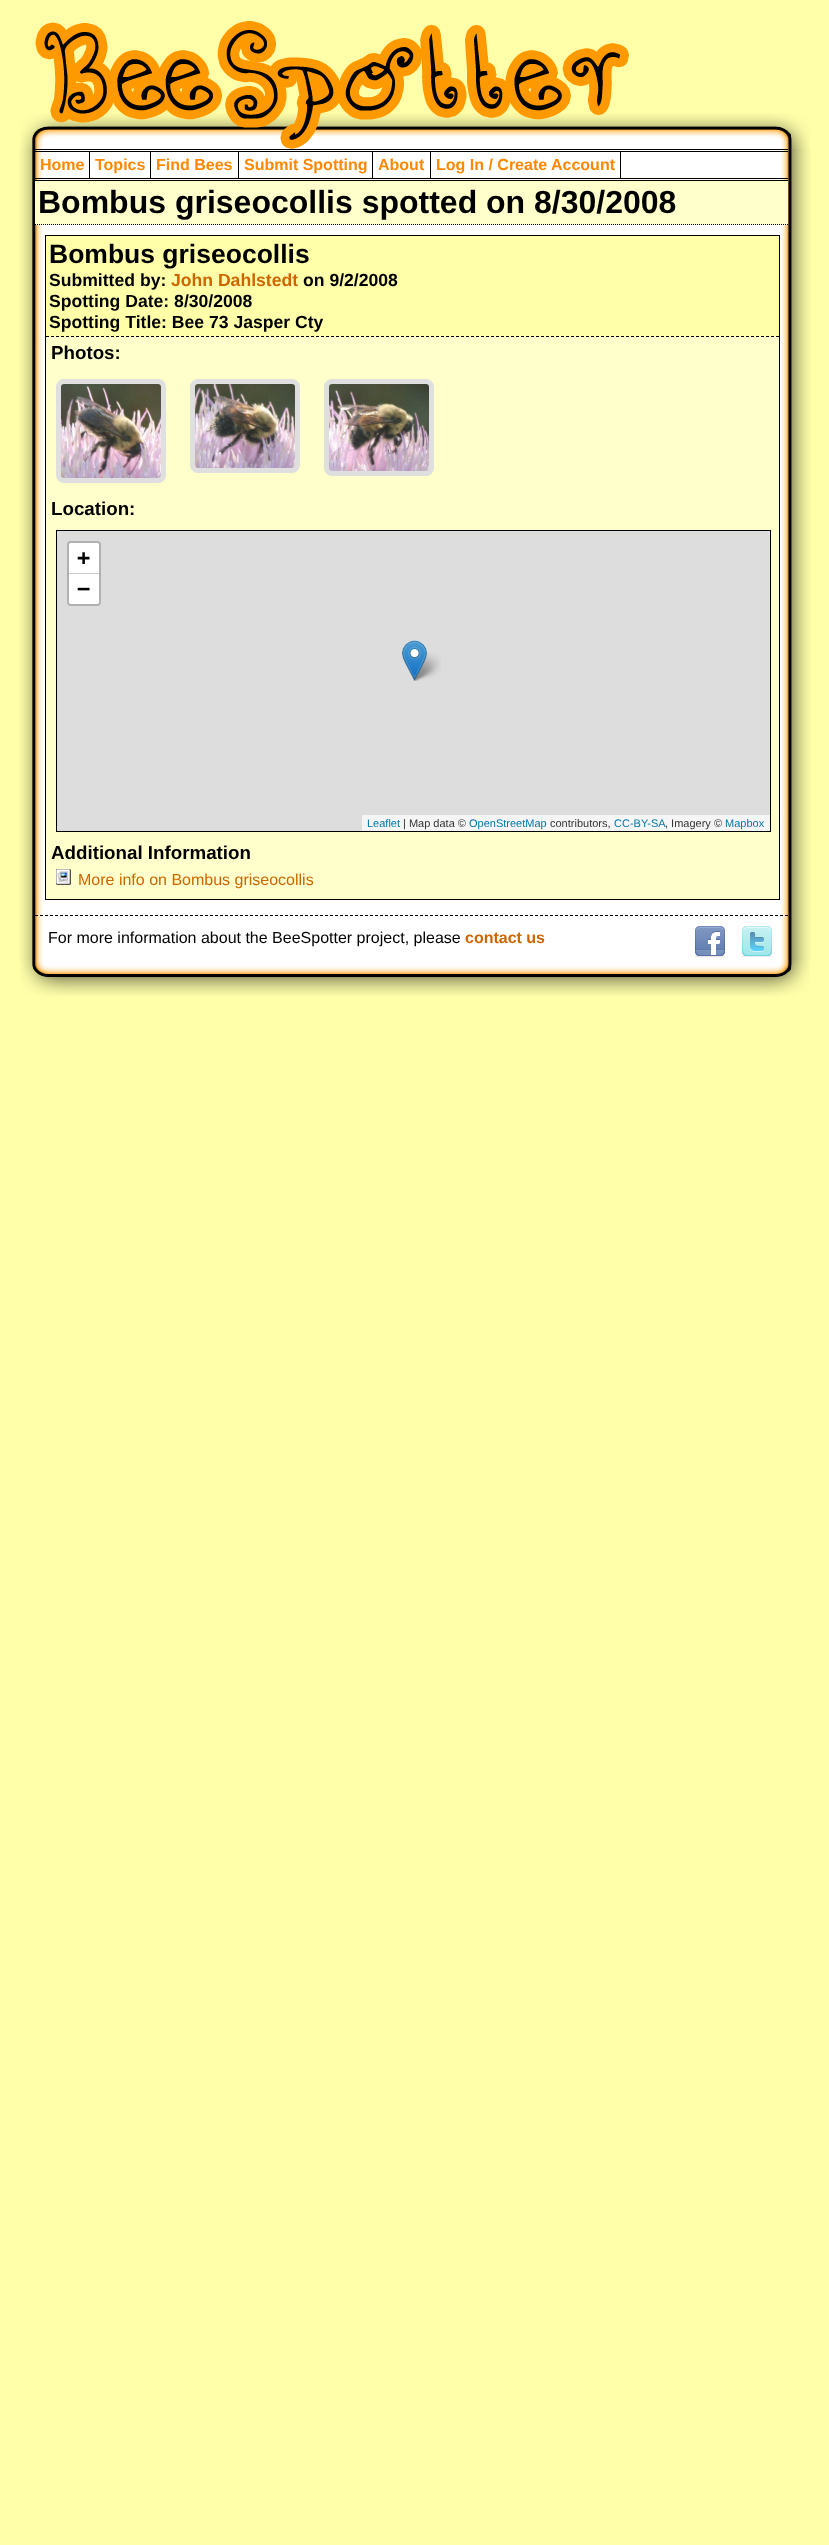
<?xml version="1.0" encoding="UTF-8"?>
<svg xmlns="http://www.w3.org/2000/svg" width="829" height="2545">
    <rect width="100%" height="100%" fill="#FFFFAA"/>
    <image x="20" y="113" width="790" height="36" href="img_01.png"/>
    <image x="35" y="21" width="594" height="128" href="img_02.png"/>
    <image x="19" y="149" width="792" height="811" href="img_03.png"/>
    <rect x="35" y="149" width="753" height="1" fill="#000000"/>
    <rect x="35" y="151" width="753" height="1" fill="#000000"/>
    <rect x="35" y="178" width="753" height="1" fill="#000000"/>
    <rect x="35" y="180" width="753" height="1" fill="#000000"/>
    <rect x="89" y="152" width="1" height="26" fill="#000000"/>
    <text x="40" y="170" font-family="Liberation Sans" font-size="16" font-weight="700" fill="#FF8800">Home</text>
    <rect x="150" y="152" width="1" height="26" fill="#000000"/>
    <text x="95" y="170" font-family="Liberation Sans" font-size="16" font-weight="700" fill="#FF8800">Topics</text>
    <rect x="238" y="152" width="1" height="26" fill="#000000"/>
    <text x="156" y="170" font-family="Liberation Sans" font-size="16" font-weight="700" fill="#FF8800">Find Bees</text>
    <rect x="372" y="152" width="1" height="26" fill="#000000"/>
    <text x="244" y="170" font-family="Liberation Sans" font-size="16" font-weight="700" fill="#FF8800">Submit Spotting</text>
    <rect x="430" y="152" width="1" height="26" fill="#000000"/>
    <text x="378" y="170" font-family="Liberation Sans" font-size="16" font-weight="700" fill="#FF8800">About</text>
    <rect x="620" y="152" width="1" height="26" fill="#000000"/>
    <text x="436" y="170" font-family="Liberation Sans" font-size="16" font-weight="700" fill="#FF8800">Log In / Create Account</text>
    <rect x="35" y="181" width="753" height="44" fill="#FFFFCC"/>
    <path d="M 35 224.5 H 788" fill="none" stroke="#000000" stroke-dasharray="1 1"/>
    <text x="38" y="213" font-family="Liberation Sans" font-size="32" font-weight="700" fill="#000000">Bombus griseocollis spotted on 8/30/2008</text>
    <rect x="46" y="337" width="733" height="562" fill="#FFFFCC"/>
    <rect x="45.5" y="235.5" width="734" height="664" fill="none" stroke="#000000"/>
    <rect x="46" y="236" width="733" height="101" fill="#FFFFAA"/>
    <path d="M 46 336.5 H 779" fill="none" stroke="#000000" stroke-dasharray="3 2"/>
    <text x="49" y="263" font-family="Liberation Sans" font-size="26.5" font-weight="700" fill="#000000">Bombus griseocollis</text>
    <text x="49" y="286" font-family="Liberation Sans" font-size="17.6" font-weight="700" fill="#000000">Submitted by:</text>
    <text x="171" y="286" font-family="Liberation Sans" font-size="17.6" font-weight="700" fill="#CD6600">John Dahlstedt</text>
    <text x="303" y="286" font-family="Liberation Sans" font-size="17.6" font-weight="700" fill="#000000">on 9/2/2008</text>
    <text font-family="Liberation Sans" font-size="17.6" font-weight="700" fill="#000000">
        <tspan x="49" y="307">Spotting Date: 8/30/2008</tspan>
        <tspan x="49" y="328">Spotting Title: Bee 73 Jasper Cty</tspan>
    </text>
    <text x="51" y="359" font-family="Liberation Sans" font-size="18.75" font-weight="700" fill="#000000">Photos:</text>
    <rect x="58.5" y="381.5" width="105" height="99" rx="5.5" fill="none" stroke="#DEDFDE" stroke-width="5"/>
    <image x="61" y="384" width="100" height="94" href="img_04.png"/>
    <rect x="192.5" y="381.5" width="105" height="89" rx="5.5" fill="none" stroke="#DEDFDE" stroke-width="5"/>
    <image x="195" y="384" width="100" height="84" href="img_05.png"/>
    <rect x="326.5" y="381.5" width="105" height="92" rx="5.5" fill="none" stroke="#DEDFDE" stroke-width="5"/>
    <image x="329" y="384" width="100" height="87" href="img_06.png"/>
    <text x="51" y="515" font-family="Liberation Sans" font-size="18.75" font-weight="700" fill="#000000">Location:</text>
    <rect x="56.5" y="530.5" width="714" height="301" fill="#DDDDDD" stroke="#000000"/>
    <rect x="68" y="542" width="32" height="63" rx="3" fill="none" stroke="#B1B1B1" stroke-width="2"/>
    <path d="M 71 543 H 97 C 98 543 99 544 99 545 V 574 H 69 V 545 C 69 544 70 543 71 543 Z" fill="#FFFFFF"/>
    <rect x="69" y="573" width="30" height="1" fill="#CCCCCC"/>
    <text x="77" y="565" font-family="DejaVu Sans Mono" font-size="22" font-weight="700" fill="#000000">+</text>
    <path d="M 69 574 H 99 V 602 C 99 603 98 604 97 604 H 71 C 70 604 69 603 69 602 Z" fill="#FFFFFF"/>
    <text x="77" y="596" font-family="DejaVu Sans Mono" font-size="22" font-weight="700" fill="#000000">−</text>
    <rect x="362" y="815" width="408" height="16" fill="#F5F5F5"/>
    <text x="367" y="827" font-family="Liberation Sans" font-size="11" fill="#0078A8">Leaflet</text>
    <text x="403" y="827" font-family="Liberation Sans" font-size="11" fill="#333333">| Map data ©</text>
    <text x="469" y="827" font-family="Liberation Sans" font-size="11" fill="#0078A8">OpenStreetMap</text>
    <text x="550" y="827" font-family="Liberation Sans" font-size="11" fill="#333333">contributors,</text>
    <text x="614" y="827" font-family="Liberation Sans" font-size="11" fill="#0078A8">CC-BY-SA</text>
    <text x="665" y="827" font-family="Liberation Sans" font-size="11" fill="#333333">, Imagery ©</text>
    <text x="725" y="827" font-family="Liberation Sans" font-size="11" fill="#0078A8">Mapbox</text>
    <image x="412" y="653" width="29" height="28" href="img_08.png"/>
    <image x="402" y="640" width="25" height="41" href="img_07.png"/>
    <text x="51" y="859" font-family="Liberation Sans" font-size="18.75" font-weight="700" fill="#000000">Additional Information</text>
    <image x="56" y="869" width="15" height="16" href="img_09.png"/>
    <text x="78" y="885" font-family="Liberation Sans" font-size="16" fill="#CD6600">More info on Bombus griseocollis</text>
    <path d="M 35 915.5 H 788" fill="none" stroke="#000000" stroke-dasharray="3 2"/>
    <text x="48" y="943" font-family="Liberation Sans" font-size="16" fill="#000000">For more information about the BeeSpotter project, please</text>
    <text x="465" y="943" font-family="Liberation Sans" font-size="16" font-weight="700" fill="#CD6600">contact us</text>
    <image x="695" y="926" width="30" height="32" href="img_10.png"/>
    <image x="742" y="926" width="30" height="31" href="img_11.png"/>
    <image x="20" y="960" width="790" height="36" href="img_12.png"/>
</svg>
